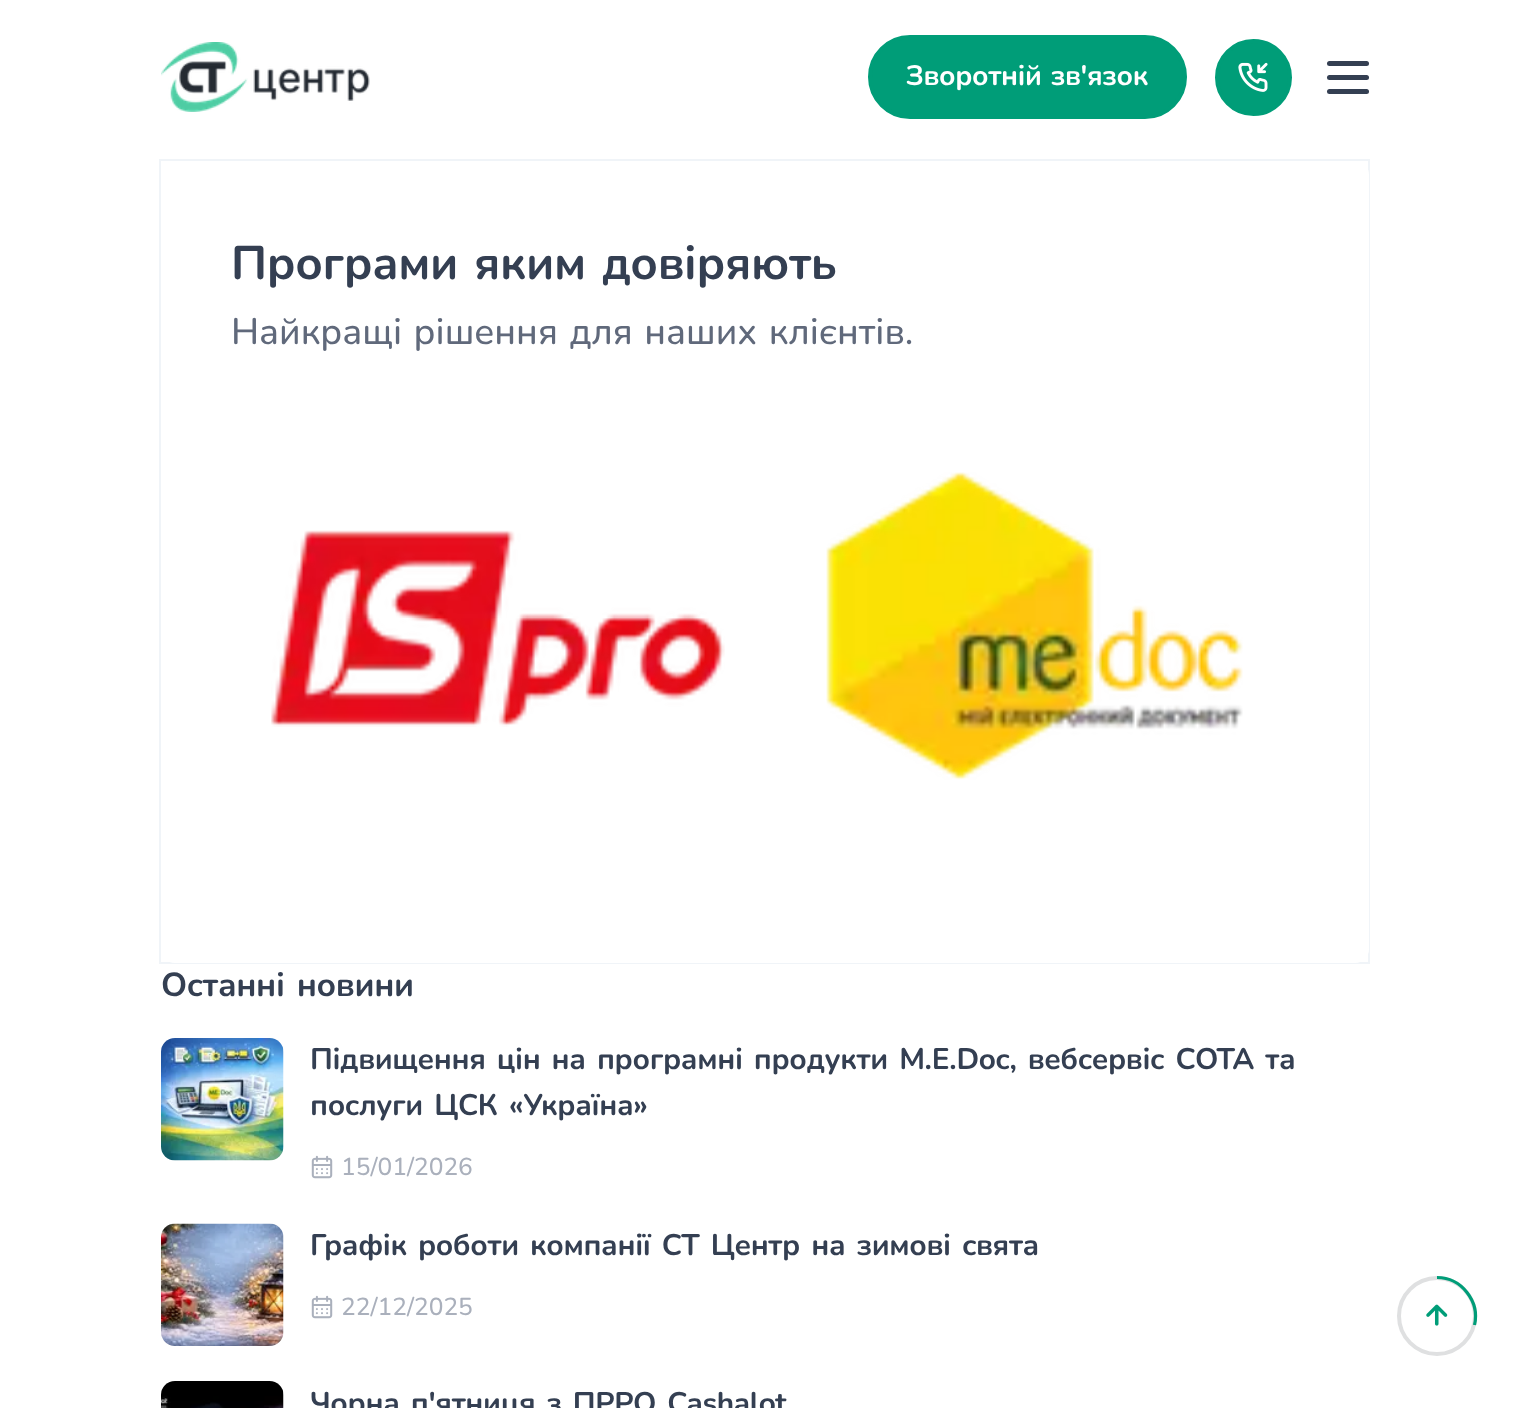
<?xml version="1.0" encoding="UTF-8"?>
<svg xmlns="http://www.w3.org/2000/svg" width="1529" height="1408">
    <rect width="100%" height="100%" fill="#FFFFFF"/>
    <rect x="160" y="-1" width="1209" height="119" fill="none" stroke="#083C82" stroke-opacity="0.06" stroke-width="2"/>
    <rect x="161" y="-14" width="1208" height="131" rx="14" fill="#FFFFFF"/>
    <rect x="161" y="9" width="1208" height="2" fill="#EDEFF4"/>
    <rect x="159" y="0" width="1211" height="119" fill="#FFFFFF" fill-opacity="0.97"/>
    <image x="161" y="42" width="209" height="70" href="img_01.png"/>
    <rect x="870" y="37" width="315" height="80" rx="40" fill="#009D78" stroke="#009D78" stroke-width="4"/>
    <text x="906" y="85" word-spacing="2" font-family="Nunito" font-size="28" font-weight="700" letter-spacing="-0.35" fill="#FFFFFF">Зворотній зв'язок</text>
    <circle cx="1253.5" cy="77.5" r="36.5" fill="#009D78" stroke="#009D78" stroke-width="4"/>
    <image x="1238" y="62" width="30" height="30" href="img_02.png"/>
    <rect x="1327" y="61" width="42" height="5" rx="2.5" fill="#343F52"/>
    <rect x="1327" y="75" width="42" height="5" rx="2.5" fill="#343F52"/>
    <rect x="1327" y="89" width="42" height="5" rx="2.5" fill="#343F52"/>
    <rect x="160" y="160" width="1209" height="803" fill="none" stroke="#083C82" stroke-opacity="0.06" stroke-width="2"/>
    <rect x="161" y="161" width="1208" height="802" rx="14" fill="#FFFFFF"/>
    <text x="231" y="279" word-spacing="3.5" font-family="Nunito" font-size="47" font-weight="700" letter-spacing="-0.35" fill="#343F52">Програми яким довіряють</text>
    <text x="231" y="344" word-spacing="2" font-family="Nunito" font-size="36.75" font-weight="500" fill="#60697B">Найкращі рішення для наших клієнтів.</text>
    <image x="271" y="530" width="454" height="197" href="img_03.png"/>
    <image x="826" y="472" width="417" height="308" href="img_04.png"/>
    <text x="161" y="996" word-spacing="3.5" font-family="Nunito" font-size="33.25" font-weight="700" letter-spacing="-0.35" fill="#343F52">Останні новини</text>
    <image x="161" y="1038" width="123" height="123" href="img_05.png"/>
    <text font-family="Nunito" font-size="29.75" font-weight="700" letter-spacing="-0.35" fill="#343F52">
        <tspan x="310" y="1069" word-spacing="3.5">Підвищення цін на програмні продукти M.E.Doc, вебсервіс СОТА та</tspan>
        <tspan x="310" y="1115" word-spacing="3.5">послуги ЦСК «Україна»</tspan>
    </text>
    <image x="311" y="1155" width="22" height="24" href="img_06.png"/>
    <text x="341" y="1175" font-family="Nunito" font-size="24.5" font-weight="500" fill="#AAB0BC">15/01/2026</text>
    <image x="161" y="1223" width="123" height="123" href="img_07.png"/>
    <text x="310" y="1255" word-spacing="3.5" font-family="Nunito" font-size="29.75" font-weight="700" letter-spacing="-0.35" fill="#343F52">Графік роботи компанії СТ Центр на зимові свята</text>
    <image x="311" y="1295" width="22" height="24" href="img_06.png"/>
    <text x="341" y="1315" font-family="Nunito" font-size="24.5" font-weight="500" fill="#AAB0BC">22/12/2025</text>
    <image x="161" y="1381" width="123" height="27" href="img_08.png"/>
    <text x="310" y="1413" word-spacing="3.5" font-family="Nunito" font-size="29.75" font-weight="700" letter-spacing="-0.35" fill="#343F52">Чорна п'ятниця з ПРРО Cashalot</text>
    <circle cx="1437" cy="1316" r="38" fill="none" stroke="#DFE0E1" stroke-width="4"/>
    <path d="M 1437 1277.5 C 1461.5 1277.5 1480 1301.5 1474.5 1325" fill="none" stroke="#009D78" stroke-width="3.2"/>
    <image x="1426" y="1304" width="22" height="22" href="img_09.png"/>
</svg>
